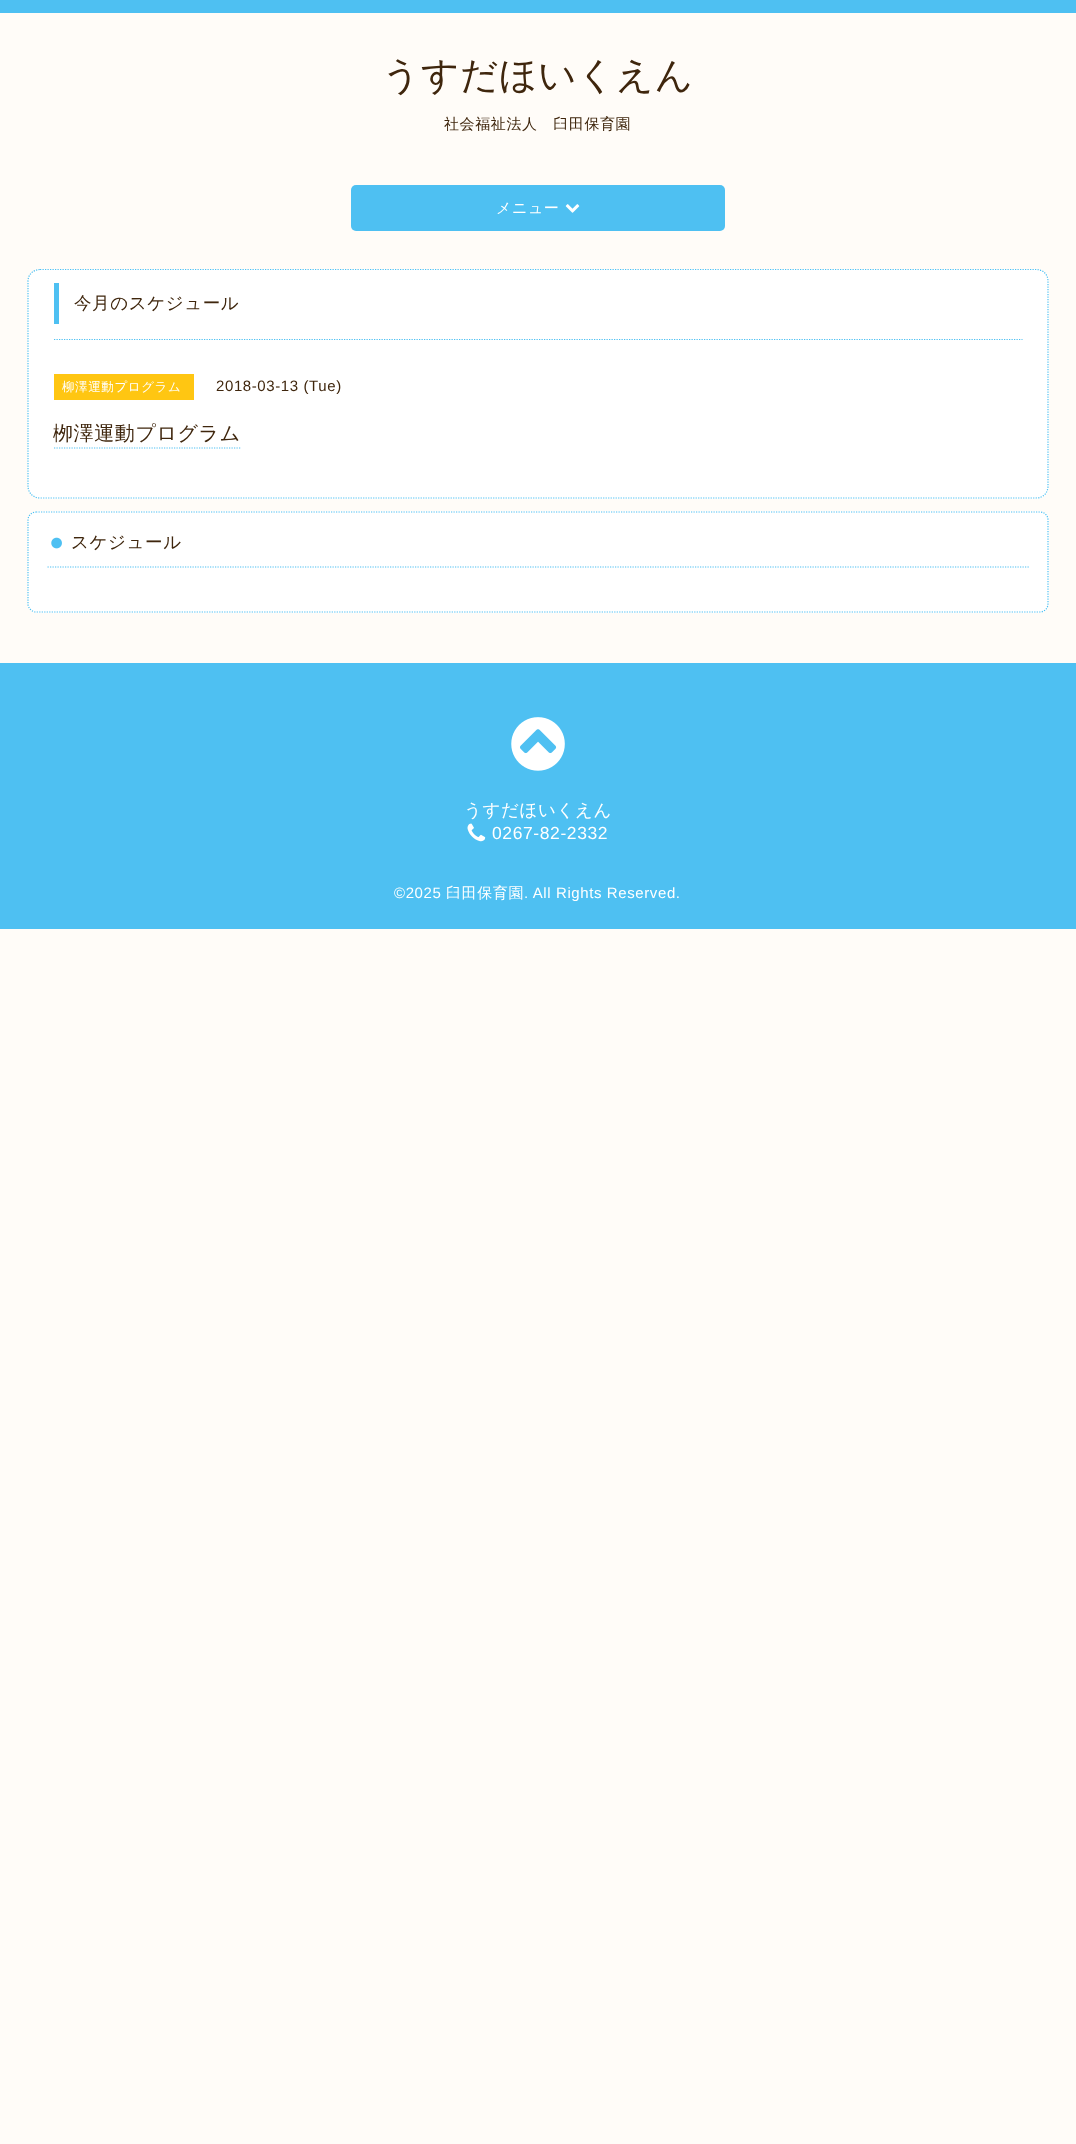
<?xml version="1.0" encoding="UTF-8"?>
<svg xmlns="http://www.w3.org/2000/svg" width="1076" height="2144">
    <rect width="100%" height="100%" fill="#FFFCF8"/>
    <rect x="0" y="0" width="1076" height="13" fill="#4EC0F2"/>
    <text x="382" y="88" font-family="WenQuanYi Zen Hei" font-size="37.5" font-weight="500" letter-spacing="0.6" fill="#3F260D">うすだほいくえん</text>
    <text x="444" y="129" font-family="WenQuanYi Zen Hei" font-size="15" font-weight="500" letter-spacing="0.6" fill="#3F260D">社会福祉法人　臼田保育園</text>
    <rect x="351" y="185" width="374" height="46" rx="5" fill="#4EC0F2"/>
    <text x="496" y="213" font-family="WenQuanYi Zen Hei" font-size="15" font-weight="500" letter-spacing="0.6" fill="#FFFFFF">メニュー</text>
    <image x="565" y="204" width="15" height="9" href="img_01.png"/>
    <rect x="28" y="269" width="1021" height="230" rx="13" fill="#FFFFFF"/>
    <path d="M 40 269.5 H 1036 C 1043 269.5 1048 274.5 1048 281 V 486 C 1048 493 1043 498 1036 498 H 40 C 33.5 498 28 493 28 486 V 281 C 28 274.5 33.5 269.5 40 269.5 Z" fill="none" stroke="#4EC0F2" stroke-width="1.2" stroke-dasharray="1.25 1.25"/>
    <rect x="54" y="283" width="5" height="41" fill="#4EC0F2"/>
    <text x="74" y="309" font-family="WenQuanYi Zen Hei" font-size="17.5" font-weight="500" letter-spacing="0.6" fill="#3F260D">今月のスケジュール</text>
    <path d="M 54 339.5 H 1022.5" fill="none" stroke="#4EC0F2" stroke-width="1.2" stroke-dasharray="1.25 1.25"/>
    <rect x="54" y="374" width="140" height="26" fill="#FFC612"/>
    <text x="62" y="391" font-family="WenQuanYi Zen Hei" font-size="12.5" font-weight="500" letter-spacing="0.6" fill="#FFFFFF">柳澤運動プログラム</text>
    <text x="216" y="391" font-family="Liberation Sans" font-size="15" letter-spacing="0.6" fill="#3F260D">2018-03-13 (Tue)</text>
    <text x="53" y="440" font-family="WenQuanYi Zen Hei" font-size="20" font-weight="500" letter-spacing="0.6" fill="#3F260D">栁澤運動プログラム</text>
    <path d="M 54 448 H 241" fill="none" stroke="#4EC0F2" stroke-width="1.2" stroke-dasharray="1.25 1.25"/>
    <rect x="28" y="511" width="1021" height="102" rx="9" fill="#FFFFFF"/>
    <path d="M 36 512 H 1040 C 1044.5 512 1048 515.5 1048 520 V 604 C 1048 608 1044.5 612 1040 612 H 36 C 32 612 28 608 28 604 V 520 C 28 515.5 32 512 36 512 Z" fill="none" stroke="#4EC0F2" stroke-width="1.2" stroke-dasharray="1.25 1.25"/>
    <path d="M 47.5 567 H 1029" fill="none" stroke="#4EC0F2" stroke-width="1.2" stroke-dasharray="1.25 1.25"/>
    <image x="51" y="537" width="11" height="12" href="img_02.png"/>
    <text x="71" y="548" font-family="WenQuanYi Zen Hei" font-size="17.5" font-weight="500" letter-spacing="0.6" fill="#3F260D">スケジュール</text>
    <rect x="0" y="663" width="1076" height="266" fill="#4EC0F2"/>
    <image x="511" y="717" width="54" height="54" href="img_03.png"/>
    <text x="464" y="816" font-family="WenQuanYi Zen Hei" font-size="17.5" font-weight="500" letter-spacing="0.6" fill="#FFFFFF">うすだほいくえん</text>
    <image x="467" y="823" width="19" height="19" href="img_04.png"/>
    <text x="492" y="839" font-family="Liberation Sans" font-size="17.5" letter-spacing="0.6" fill="#FFFFFF">0267-82-2332</text>
    <text x="394" y="898" font-family="Liberation Sans" font-size="15" letter-spacing="0.6" fill="#FFFFFF">©2025</text>
    <text x="446" y="898" font-family="WenQuanYi Zen Hei" font-size="15" font-weight="500" letter-spacing="0.6" fill="#FFFFFF">臼田保育園</text>
    <text x="524" y="898" font-family="Liberation Sans" font-size="15" letter-spacing="0.6" fill="#FFFFFF">. All Rights Reserved.</text>
</svg>
